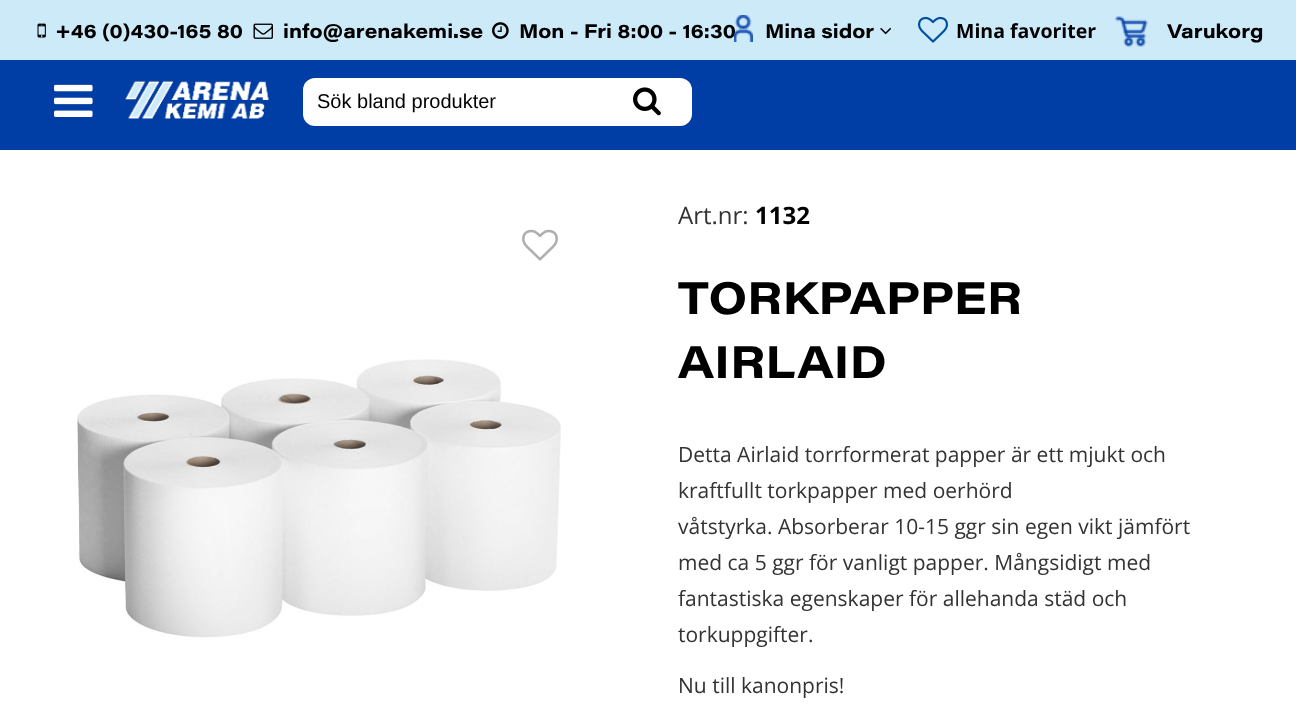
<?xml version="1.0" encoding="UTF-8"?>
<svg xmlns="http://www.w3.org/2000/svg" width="1296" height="719">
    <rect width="100%" height="100%" fill="#FFFFFF"/>
    <rect x="0" y="60" width="1296" height="90" fill="#003DA5"/>
    <rect x="0" y="0" width="1296" height="60" fill="#CDEAF9"/>
    <image x="37" y="23" width="9" height="15" href="img_01.png"/>
    <text x="55" y="38" font-family="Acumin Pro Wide" font-size="19.5" font-weight="700" fill="#000000">+46 (0)430-165 80</text>
    <image x="253" y="23" width="20" height="16" href="img_02.png"/>
    <text x="283" y="38" font-family="Acumin Pro Wide" font-size="19.5" font-weight="700" fill="#000000">info@arenakemi.se</text>
    <image x="492" y="22" width="17" height="17" href="img_03.png"/>
    <text x="519" y="38" font-family="Acumin Pro Wide" font-size="19.5" font-weight="700" fill="#000000">Mon - Fri 8:00 - 16:30</text>
    <image x="734" y="15" width="19" height="27" href="img_04.png"/>
    <text x="765" y="38" font-family="Acumin Pro Wide" font-size="19.5" font-weight="700" fill="#000000">Mina sidor</text>
    <image x="880" y="27" width="11" height="8" href="img_05.png"/>
    <image x="918" y="16" width="30" height="27" href="img_06.png"/>
    <text x="956" y="38" font-family="Open Sans" font-size="19.5" font-weight="700" fill="#000000">Mina favoriter</text>
    <image x="1114" y="16" width="34" height="31" href="img_07.png"/>
    <text x="1167" y="38" font-family="Acumin Pro Wide" font-size="19.5" font-weight="700" fill="#000000">Varukorg</text>
    <image x="54" y="84" width="39" height="33" href="img_08.png"/>
    <image x="124" y="80" width="145" height="39" href="img_09.png"/>
    <rect x="303" y="78" width="389" height="48" rx="12" fill="#FFFFFF"/>
    <text x="317" y="108" font-family="Liberation Sans" font-size="20" fill="#000000">Sök bland produkter</text>
    <image x="633" y="87" width="28" height="29" href="img_10.png"/>
    <image x="522" y="229" width="36" height="32" href="img_11.png"/>
    <image x="77" y="359" width="484" height="279" href="img_12.png"/>
    <text x="678" y="224" font-family="Open Sans" font-size="24" fill="#333333">Art.nr:</text>
    <text x="755" y="224" font-family="Open Sans" font-size="24" font-weight="700" fill="#000000">1132</text>
    <text font-family="Acumin Pro Wide" font-size="45" font-weight="700" fill="#000000">
        <tspan x="678" y="314">TORKPAPPER</tspan>
        <tspan x="678" y="378">AIRLAID</tspan>
    </text>
    <text font-family="Open Sans" font-size="21" fill="#333333">
        <tspan x="678" y="462">Detta Airlaid torrformerat papper är ett mjukt och</tspan>
        <tspan x="678" y="498">kraftfullt torkpapper med oerhörd</tspan>
        <tspan x="678" y="534">våtstyrka. Absorberar 10-15 ggr sin egen vikt jämfört</tspan>
        <tspan x="678" y="570">med ca 5 ggr för vanligt papper. Mångsidigt med</tspan>
        <tspan x="678" y="606">fantastiska egenskaper för allehanda städ och</tspan>
        <tspan x="678" y="642">torkuppgifter.</tspan>
    </text>
    <text x="678" y="693" font-family="Open Sans" font-size="21" fill="#333333">Nu till kanonpris!</text>
</svg>
